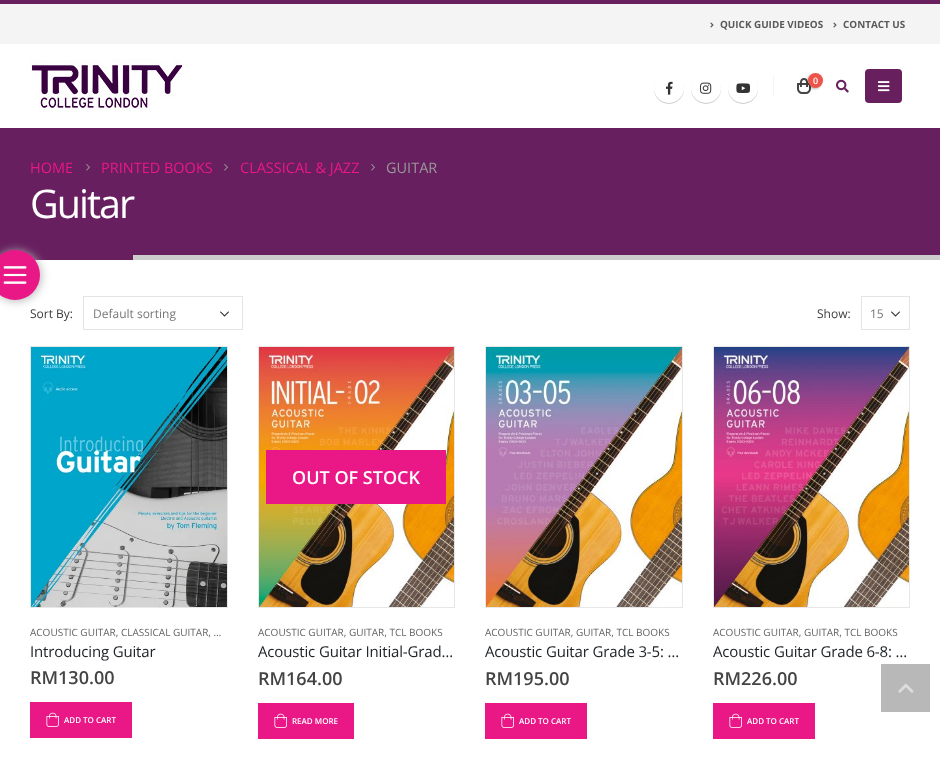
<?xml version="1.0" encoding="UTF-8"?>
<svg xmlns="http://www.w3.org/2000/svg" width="940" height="757">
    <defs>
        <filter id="blur1" x="-50%" y="-200%" width="200%" height="500%"><feGaussianBlur stdDeviation="5"/></filter>
        <filter id="blur2" x="-50%" y="-200%" width="200%" height="500%"><feGaussianBlur stdDeviation="0.5"/></filter>
        <filter id="blur3" x="-50%" y="-200%" width="200%" height="500%"><feGaussianBlur stdDeviation="1"/></filter>
    </defs>
    <rect width="100%" height="100%" fill="#FFFFFF"/>
    <rect x="0" y="128" width="940" height="127" fill="#671F5F"/>
    <rect x="30" y="255" width="103" height="5" fill="#671F5E"/>
    <rect x="-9" y="251" width="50" height="50" rx="25" fill="#B4B4B4" filter="url(#blur1)"/>
    <circle cx="15" cy="275" r="25" fill="#EA1886"/>
    <image x="3" y="266" width="24" height="18" href="img_01.png"/>
    <rect x="0" y="0" width="940" height="4" fill="#671F5E"/>
    <rect x="0" y="4" width="940" height="40" fill="#F4F4F4"/>
    <image x="710" y="22" width="4" height="6" href="img_02.png"/>
    <text x="720" y="28" font-family="Open Sans" font-size="9.9" font-weight="700" fill="#5A5A5A">QUICK GUIDE VIDEOS</text>
    <image x="833" y="22" width="4" height="6" href="img_02.png"/>
    <text x="843" y="28" font-family="Open Sans" font-size="9.9" font-weight="700" fill="#5A5A5A">CONTACT US</text>
    <image x="30" y="59" width="152" height="54" href="img_03.png"/>
    <rect x="654" y="74" width="30" height="30" rx="15" fill="#000000" fill-opacity="0.2" filter="url(#blur2)"/>
    <circle cx="669" cy="88" r="15" fill="#FFFFFF"/>
    <image x="666" y="81" width="7" height="14" href="img_04.png"/>
    <rect x="691" y="74" width="30" height="30" rx="15" fill="#000000" fill-opacity="0.2" filter="url(#blur2)"/>
    <circle cx="706" cy="88" r="15" fill="#FFFFFF"/>
    <image x="700" y="82" width="12" height="12" href="img_05.png"/>
    <rect x="728" y="74" width="30" height="30" rx="15" fill="#000000" fill-opacity="0.2" filter="url(#blur2)"/>
    <circle cx="743" cy="88" r="15" fill="#FFFFFF"/>
    <image x="736" y="83" width="14" height="10" href="img_06.png"/>
    <rect x="773" y="75" width="1" height="22" fill="#F5F5F5"/>
    <path d="M 798 84 H 810 V 89 C 810 91 808 93 806 93 H 802 C 800 93 798 91 798 89 Z" fill="none" stroke="#444444" stroke-width="2"/>
    <path d="M 804 78 C 809 78 808 84 808 87 H 800 C 800 84 799 78 804 78 Z M 804 80 C 807 80 806 85 806 87 H 802 C 802 85 801 80 804 80 Z" fill="#444444" fill-rule="evenodd"/>
    <rect x="807" y="74" width="15" height="15" rx="7.5" fill="#000000" fill-opacity="0.3" filter="url(#blur3)"/>
    <circle cx="815.5" cy="80.5" r="7.5" fill="#ED5348"/>
    <text x="813" y="84" font-family="Open Sans" font-size="9" font-weight="600" fill="#FFFFFF">0</text>
    <image x="836" y="79" width="13" height="14" href="img_07.png"/>
    <rect x="865" y="69" width="37" height="34" rx="4" fill="#671F5E"/>
    <image x="878" y="81" width="12" height="11" href="img_08.png"/>
    <rect x="133" y="255" width="807" height="5" fill="#CCCCCC"/>
    <text x="30" y="173" font-family="Open Sans" font-size="14.5" fill="#EA1886">HOME</text>
    <image x="86" y="164" width="4" height="7" href="img_09.png"/>
    <text x="101" y="173" font-family="Open Sans" font-size="14.5" fill="#EA1886">PRINTED BOOKS</text>
    <image x="224" y="164" width="4" height="7" href="img_09.png"/>
    <text x="240" y="173" font-family="Open Sans" font-size="14.5" fill="#EA1886">CLASSICAL &amp; JAZZ</text>
    <image x="371" y="164" width="4" height="7" href="img_09.png"/>
    <text x="386" y="173" font-family="Open Sans" font-size="14.5" fill="#999999">GUITAR</text>
    <text x="30" y="218" font-family="Open Sans" font-size="39.5" letter-spacing="-2" fill="#FFFFFF">Guitar</text>
    <text x="30" y="318" font-family="Open Sans" font-size="12" fill="#3C3C3C">Sort By:</text>
    <image x="220" y="311" width="9" height="6" href="img_10.png"/>
    <rect x="83.5" y="296.5" width="159" height="33" fill="none" stroke="#E4E4E4"/>
    <text x="93" y="318" font-family="Open Sans" font-size="12" fill="#777777">Default sorting</text>
    <text x="817" y="318" font-family="Open Sans" font-size="12" fill="#3C3C3C">Show:</text>
    <image x="891" y="311" width="9" height="6" href="img_10.png"/>
    <rect x="861.5" y="296.5" width="48" height="33" fill="none" stroke="#E4E4E4"/>
    <text x="870" y="318" font-family="Open Sans" font-size="12" fill="#777777">15</text>
    <rect x="30.5" y="346.5" width="197" height="261" fill="none" stroke="#E7E7E7"/>
    <image x="31" y="347" width="196" height="260" href="img_11.png"/>
    <text x="30" y="636" font-family="Open Sans" font-size="10" fill="#636363">ACOUSTIC GUITAR, CLASSICAL GUITAR, …</text>
    <text x="30" y="657" font-family="Open Sans" font-size="15" letter-spacing="-0.15" fill="#212529">Introducing Guitar</text>
    <text x="30" y="684" font-family="Open Sans" font-size="18" font-weight="600" fill="#444444">RM130.00</text>
    <rect x="30" y="702" width="102" height="36" fill="#EA1886"/>
    <image x="46" y="712" width="13" height="15" href="img_12.png"/>
    <text x="64" y="723" font-family="Open Sans" font-size="8" font-weight="600" fill="#FFFFFF">ADD TO CART</text>
    <rect x="258.5" y="346.5" width="196" height="261" fill="none" stroke="#E7E7E7"/>
    <image x="259" y="347" width="195" height="260" href="img_13.png"/>
    <rect x="266" y="450" width="180" height="54" fill="#EA1886"/>
    <text x="292" y="484" font-family="Open Sans" font-size="18" font-weight="600" fill="#FFFFFF">OUT OF STOCK</text>
    <text x="258" y="636" font-family="Open Sans" font-size="10" fill="#636363">ACOUSTIC GUITAR, GUITAR, TCL BOOKS</text>
    <text x="258" y="657" font-family="Open Sans" font-size="15" letter-spacing="-0.15" fill="#212529">Acoustic Guitar Initial-Grad…</text>
    <text x="258" y="685" font-family="Open Sans" font-size="18" font-weight="600" fill="#444444">RM164.00</text>
    <rect x="258" y="703" width="96" height="36" fill="#EA1886"/>
    <image x="274" y="713" width="13" height="15" href="img_12.png"/>
    <text x="292" y="724" font-family="Open Sans" font-size="8" font-weight="600" fill="#FFFFFF">READ MORE</text>
    <rect x="485.5" y="346.5" width="197" height="261" fill="none" stroke="#E7E7E7"/>
    <image x="486" y="347" width="196" height="260" href="img_14.png"/>
    <text x="485" y="636" font-family="Open Sans" font-size="10" fill="#636363">ACOUSTIC GUITAR, GUITAR, TCL BOOKS</text>
    <text x="485" y="657" font-family="Open Sans" font-size="15" letter-spacing="-0.15" fill="#212529">Acoustic Guitar Grade 3-5: …</text>
    <text x="485" y="685" font-family="Open Sans" font-size="18" font-weight="600" fill="#444444">RM195.00</text>
    <rect x="485" y="703" width="102" height="36" fill="#EA1886"/>
    <image x="501" y="713" width="13" height="15" href="img_12.png"/>
    <text x="519" y="724" font-family="Open Sans" font-size="8" font-weight="600" fill="#FFFFFF">ADD TO CART</text>
    <rect x="713.5" y="346.5" width="196" height="261" fill="none" stroke="#E7E7E7"/>
    <image x="714" y="347" width="195" height="260" href="img_15.png"/>
    <text x="713" y="636" font-family="Open Sans" font-size="10" fill="#636363">ACOUSTIC GUITAR, GUITAR, TCL BOOKS</text>
    <text x="713" y="657" font-family="Open Sans" font-size="15" letter-spacing="-0.15" fill="#212529">Acoustic Guitar Grade 6-8: …</text>
    <text x="713" y="685" font-family="Open Sans" font-size="18" font-weight="600" fill="#444444">RM226.00</text>
    <rect x="713" y="703" width="102" height="36" fill="#EA1886"/>
    <image x="729" y="713" width="13" height="15" href="img_12.png"/>
    <text x="747" y="724" font-family="Open Sans" font-size="8" font-weight="600" fill="#FFFFFF">ADD TO CART</text>
    <rect x="881" y="664" width="49" height="48" fill="#B8B8B8"/>
    <image x="898" y="683" width="16" height="10" href="img_16.png"/>
</svg>
